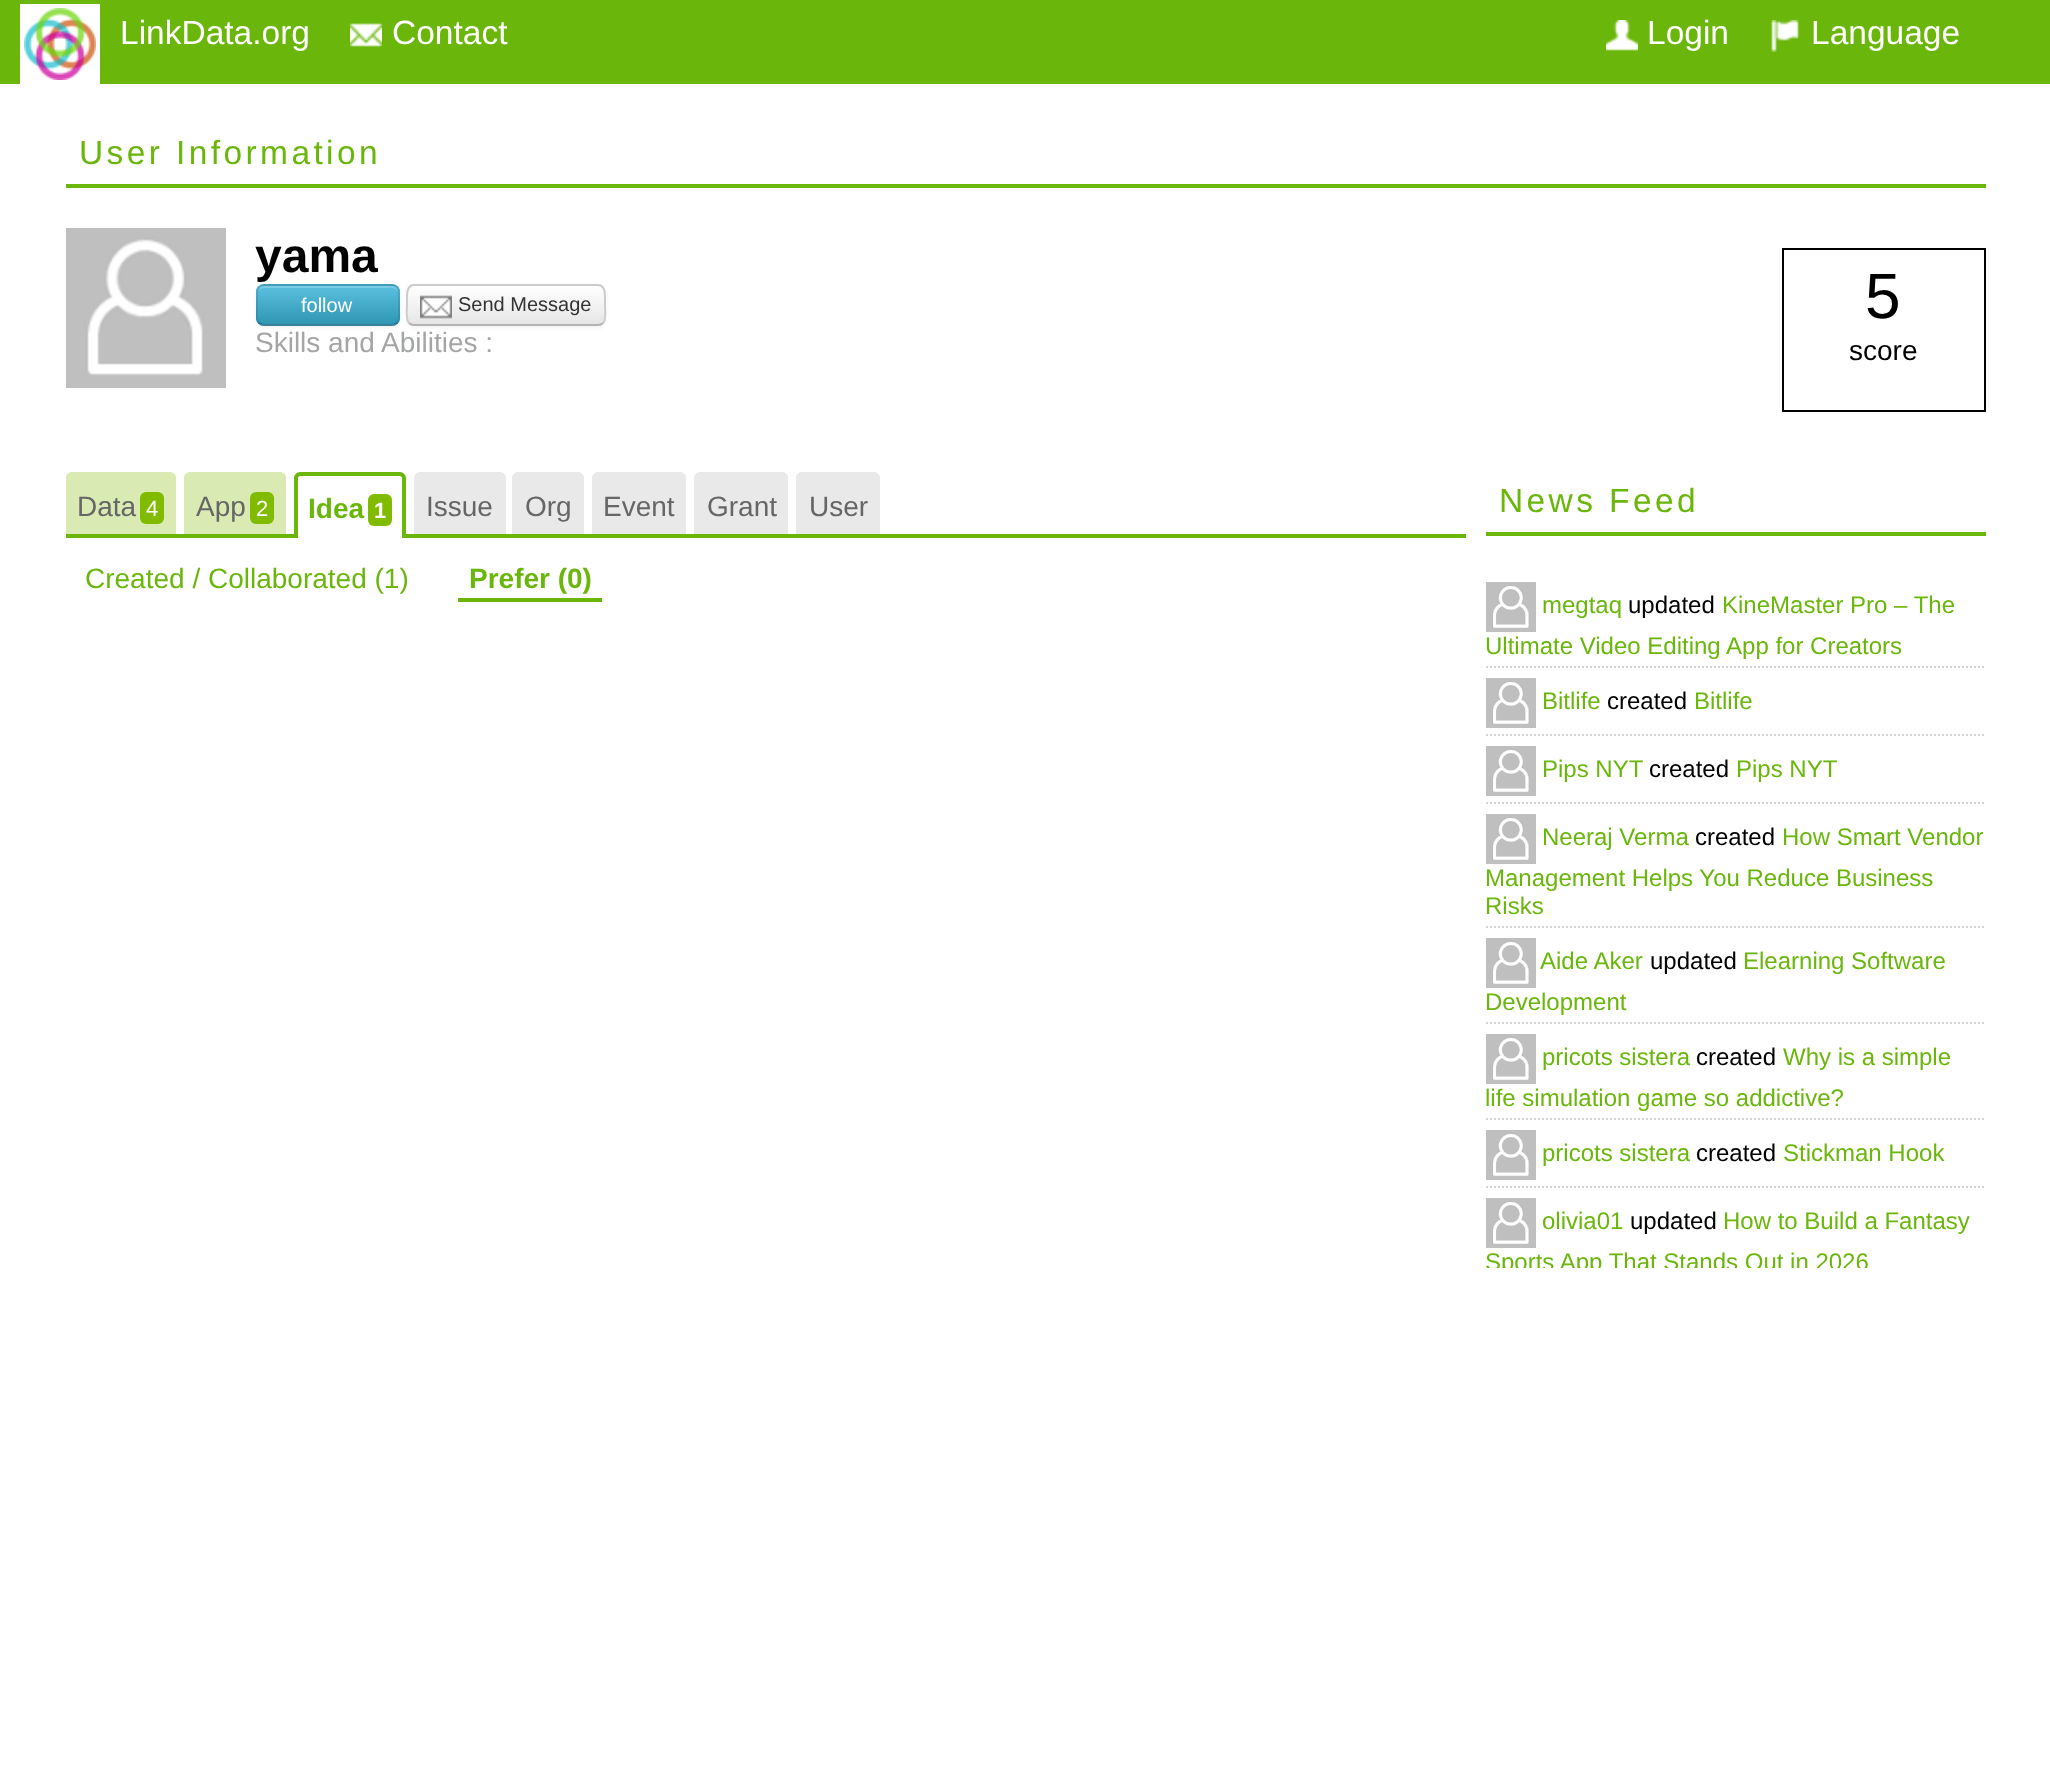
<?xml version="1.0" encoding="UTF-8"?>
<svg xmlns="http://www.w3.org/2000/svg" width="2050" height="1791">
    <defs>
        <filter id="blur1" x="-50%" y="-200%" width="200%" height="500%"><feGaussianBlur stdDeviation="2"/></filter>
        <clipPath id="clip1"><rect x="256" y="284" width="144" height="42" rx="8"/></clipPath>
        <linearGradient id="g1" gradientUnits="userSpaceOnUse" x1="328" y1="286" x2="328" y2="324"><stop offset="0" stop-color="#5BC0DE"/><stop offset="1" stop-color="#2F96B4"/></linearGradient>
        <clipPath id="clip2"><rect x="406" y="284" width="200" height="42" rx="8"/></clipPath>
        <linearGradient id="g2" gradientUnits="userSpaceOnUse" x1="506" y1="286" x2="506" y2="324"><stop offset="0" stop-color="#FFFFFF"/><stop offset="1" stop-color="#E6E6E6"/></linearGradient>
        <clipPath id="clip3"><rect x="1486" y="576" width="500" height="692"/></clipPath>
    </defs>
    <rect width="100%" height="100%" fill="#FFFFFF"/>
    <rect x="0" y="0" width="2050" height="84" fill="#6AB60B"/>
    <rect x="22" y="6" width="76" height="76" fill="none" stroke="#FFFFFF" stroke-width="4"/>
    <image x="24" y="8" width="72" height="72" href="img_01.png"/>
    <text x="120" y="44" font-family="Liberation Sans" font-size="33.5" fill="#FFFFFF">LinkData.org</text>
    <image x="350" y="23" width="32" height="24" href="img_02.png"/>
    <text x="392" y="44" font-family="Liberation Sans" font-size="33.5" fill="#FFFFFF">Contact</text>
    <image x="1606" y="20" width="32" height="31" href="img_03.png"/>
    <text x="1647" y="44" font-family="Liberation Sans" font-size="33.5" fill="#FFFFFF">Login</text>
    <image x="1771" y="20" width="28" height="32" href="img_04.png"/>
    <text x="1811" y="44" font-family="Liberation Sans" font-size="33.5" fill="#FFFFFF">Language</text>
    <rect x="66" y="184" width="1920" height="4" fill="#6AB60B"/>
    <text x="79" y="164" font-family="Liberation Sans" font-size="33.5" letter-spacing="3.4" fill="#6AB60B">User Information</text>
    <image x="66" y="228" width="160" height="160" href="img_05.png"/>
    <text x="255" y="272" font-family="Liberation Sans" font-size="48" font-weight="700" fill="#000000">yama</text>
    <rect x="256" y="286" width="144" height="42" rx="8" fill="#000000" fill-opacity="0.05" filter="url(#blur1)"/>
    <rect x="256" y="284" width="144" height="42" rx="8" fill="#49AFCD"/>
    <g clip-path="url(#clip1)">
        <rect x="256" y="286" width="144" height="38" fill="url(#g1)"/>
    </g>
    <path d="M 264 288 H 392 C 395 288 398 291 398 294 V 292 C 398 289 395 286 392 286 H 264 C 261 286 258 289 258 292 V 294 C 258 291 261 288 264 288 Z" fill="#FFFFFF" fill-opacity="0.2"/>
    <path d="M 397 323 C 395.5 324.5 394 325 392 325 H 264 C 262 325 260.5 324.5 259 323" fill="none" stroke="#000000" stroke-opacity="0.25" stroke-width="2"/>
    <path d="M 259 323 C 255.5 319.5 257 313.5 257 309.5 C 257 281 254.5 285 285.5 285 H 370.5 C 401.5 285 399 281 399 309.5 C 399 313.5 400.5 319.5 397 323" fill="none" stroke="#000000" stroke-opacity="0.1" stroke-width="2"/>
    <text x="301" y="312" font-family="Liberation Sans" font-size="20" fill="#FFFFFF">follow</text>
    <rect x="406" y="286" width="200" height="42" rx="8" fill="#000000" fill-opacity="0.05" filter="url(#blur1)"/>
    <g clip-path="url(#clip2)">
        <rect x="406" y="286" width="200" height="38" fill="url(#g2)"/>
    </g>
    <path d="M 603 323 C 601.5 324.5 600 325 598 325 H 414 C 412 325 410.5 324.5 409 323" fill="none" stroke="#B3B3B3" stroke-width="2"/>
    <path d="M 409 323 C 405.5 319.5 407 309.5 407 305 V 296.5 C 407 291.5 407.5 285 414 285 H 598 C 604.5 285 605 291.5 605 296.5 V 305 C 605 309.5 606.5 319.5 603 323" fill="none" stroke="#CCCCCC" stroke-width="2"/>
    <image x="420" y="295" width="32" height="24" href="img_06.png"/>
    <text x="458" y="311" font-family="Liberation Sans" font-size="20" fill="#333333">Send Message</text>
    <text x="255" y="352" font-family="Liberation Sans" font-size="28" fill="#A4A6A5">Skills and Abilities :</text>
    <rect x="1783" y="249" width="202" height="162" fill="none" stroke="#000000" stroke-width="2"/>
    <text x="1865" y="318" font-family="Liberation Sans" font-size="64" fill="#000000">5</text>
    <text x="1849" y="360" font-family="Liberation Sans" font-size="28" fill="#000000">score</text>
    <rect x="66" y="534" width="1400" height="4" fill="#6AB60B"/>
    <path d="M 72 472 H 170 C 173.5 472 176 474.5 176 478 V 534 H 66 V 478 C 66 474.5 68.5 472 72 472 Z" fill="#D9EBB3"/>
    <text x="77" y="516" font-family="Liberation Sans" font-size="28" fill="#666666">Data</text>
    <rect x="140" y="492" width="24" height="32" rx="6" fill="#81BB00"/>
    <text x="146" y="516" font-family="Liberation Sans" font-size="22" fill="#FFFFFF">4</text>
    <path d="M 190 472 H 280 C 283.5 472 286 474.5 286 478 V 534 H 184 V 478 C 184 474.5 186.5 472 190 472 Z" fill="#D9EBB3"/>
    <text x="196" y="516" font-family="Liberation Sans" font-size="28" fill="#666666">App</text>
    <rect x="250" y="492" width="24" height="32" rx="6" fill="#81BB00"/>
    <text x="256" y="516" font-family="Liberation Sans" font-size="22" fill="#FFFFFF">2</text>
    <path d="M 300 472 H 400 C 403.5 472 406 474.5 406 478 V 538 H 294 V 478 C 294 474.5 296.5 472 300 472 Z" fill="#FFFFFF"/>
    <path d="M 300 472 H 400 C 403 472 406 475 406 478 V 538 H 294 V 478 C 294 475 297 472 300 472 Z M 300 476 H 400 C 401 476 402 477 402 478 V 538 H 298 V 478 C 298 477 299 476 300 476 Z" fill="#6AB60B" fill-rule="evenodd"/>
    <text x="308" y="518" font-family="Liberation Sans" font-size="28" font-weight="700" fill="#6AB60B">Idea</text>
    <rect x="368" y="494" width="24" height="32" rx="6" fill="#81BB00"/>
    <text x="374" y="518" font-family="Liberation Sans" font-size="22" font-weight="700" fill="#FFFFFF">1</text>
    <path d="M 420 472 H 500 C 503.5 472 506 474.5 506 478 V 534 H 414 V 478 C 414 474.5 416.5 472 420 472 Z" fill="#E9E9E9"/>
    <text x="426" y="516" font-family="Liberation Sans" font-size="28" fill="#666666">Issue</text>
    <path d="M 518 472 H 578 C 581.5 472 584 474.5 584 478 V 534 H 512 V 478 C 512 474.5 514.5 472 518 472 Z" fill="#E9E9E9"/>
    <text x="525" y="516" font-family="Liberation Sans" font-size="28" fill="#666666">Org</text>
    <path d="M 598 472 H 680 C 683.5 472 686 474.5 686 478 V 534 H 592 V 478 C 592 474.5 594.5 472 598 472 Z" fill="#E9E9E9"/>
    <text x="603" y="516" font-family="Liberation Sans" font-size="28" fill="#666666">Event</text>
    <path d="M 700 472 H 782 C 785.5 472 788 474.5 788 478 V 534 H 694 V 478 C 694 474.5 696.5 472 700 472 Z" fill="#E9E9E9"/>
    <text x="707" y="516" font-family="Liberation Sans" font-size="28" fill="#666666">Grant</text>
    <path d="M 802 472 H 874 C 877.5 472 880 474.5 880 478 V 534 H 796 V 478 C 796 474.5 798.5 472 802 472 Z" fill="#E9E9E9"/>
    <text x="809" y="516" font-family="Liberation Sans" font-size="28" fill="#666666">User</text>
    <text x="85" y="588" font-family="Liberation Sans" font-size="28" fill="#6AB60B">Created / Collaborated (1)</text>
    <rect x="458" y="598" width="144" height="4" fill="#6AB60B"/>
    <text x="469" y="588" font-family="Liberation Sans" font-size="28" font-weight="700" fill="#6AB60B">Prefer (0)</text>
    <rect x="1486" y="532" width="500" height="4" fill="#6AB60B"/>
    <text x="1499" y="512" font-family="Liberation Sans" font-size="33.5" letter-spacing="3.4" fill="#6AB60B">News Feed</text>
    <path d="M 1486 667 H 1986" fill="none" stroke="#D3D3D3" stroke-width="2" stroke-dasharray="2 2"/>
    <image x="1486" y="582" width="50" height="50" href="img_07.png"/>
    <text x="1542" y="613" font-family="Liberation Sans" font-size="24" fill="#6AB60B">megtaq</text>
    <text x="1628" y="613" font-family="Liberation Sans" font-size="24" fill="#000000">updated</text>
    <text x="1722" y="613" font-family="Liberation Sans" font-size="24" fill="#6AB60B">KineMaster Pro – The</text>
    <text x="1485" y="654" font-family="Liberation Sans" font-size="24" fill="#6AB60B">Ultimate Video Editing App for Creators</text>
    <path d="M 1486 735 H 1986" fill="none" stroke="#D3D3D3" stroke-width="2" stroke-dasharray="2 2"/>
    <image x="1486" y="678" width="50" height="50" href="img_07.png"/>
    <text x="1542" y="709" font-family="Liberation Sans" font-size="24" fill="#6AB60B">Bitlife</text>
    <text x="1607" y="709" font-family="Liberation Sans" font-size="24" fill="#000000">created</text>
    <text x="1694" y="709" font-family="Liberation Sans" font-size="24" fill="#6AB60B">Bitlife</text>
    <path d="M 1486 803 H 1986" fill="none" stroke="#D3D3D3" stroke-width="2" stroke-dasharray="2 2"/>
    <image x="1486" y="746" width="50" height="50" href="img_07.png"/>
    <text x="1542" y="777" font-family="Liberation Sans" font-size="24" fill="#6AB60B">Pips NYT</text>
    <text x="1649" y="777" font-family="Liberation Sans" font-size="24" fill="#000000">created</text>
    <text x="1736" y="777" font-family="Liberation Sans" font-size="24" fill="#6AB60B">Pips NYT</text>
    <path d="M 1486 927 H 1986" fill="none" stroke="#D3D3D3" stroke-width="2" stroke-dasharray="2 2"/>
    <image x="1486" y="814" width="50" height="50" href="img_08.png"/>
    <text x="1542" y="845" font-family="Liberation Sans" font-size="24" fill="#6AB60B">Neeraj Verma</text>
    <text x="1695" y="845" font-family="Liberation Sans" font-size="24" fill="#000000">created</text>
    <text x="1782" y="845" font-family="Liberation Sans" font-size="24" fill="#6AB60B">How Smart Vendor</text>
    <text font-family="Liberation Sans" font-size="24" fill="#6AB60B">
        <tspan x="1485" y="886">Management Helps You Reduce Business</tspan>
        <tspan x="1485" y="914">Risks</tspan>
    </text>
    <path d="M 1486 1023 H 1986" fill="none" stroke="#D3D3D3" stroke-width="2" stroke-dasharray="2 2"/>
    <image x="1486" y="938" width="50" height="50" href="img_07.png"/>
    <text x="1540" y="969" font-family="Liberation Sans" font-size="24" fill="#6AB60B">Aide Aker</text>
    <text x="1650" y="969" font-family="Liberation Sans" font-size="24" fill="#000000">updated</text>
    <text x="1743" y="969" font-family="Liberation Sans" font-size="24" fill="#6AB60B">Elearning Software</text>
    <text x="1485" y="1010" font-family="Liberation Sans" font-size="24" fill="#6AB60B">Development</text>
    <path d="M 1486 1119 H 1986" fill="none" stroke="#D3D3D3" stroke-width="2" stroke-dasharray="2 2"/>
    <image x="1486" y="1034" width="50" height="50" href="img_09.png"/>
    <text x="1542" y="1065" font-family="Liberation Sans" font-size="24" fill="#6AB60B">pricots sistera</text>
    <text x="1696" y="1065" font-family="Liberation Sans" font-size="24" fill="#000000">created</text>
    <text x="1783" y="1065" font-family="Liberation Sans" font-size="24" fill="#6AB60B">Why is a simple</text>
    <text x="1485" y="1106" font-family="Liberation Sans" font-size="24" fill="#6AB60B">life simulation game so addictive?</text>
    <path d="M 1486 1187 H 1986" fill="none" stroke="#D3D3D3" stroke-width="2" stroke-dasharray="2 2"/>
    <image x="1486" y="1130" width="50" height="50" href="img_07.png"/>
    <text x="1542" y="1161" font-family="Liberation Sans" font-size="24" fill="#6AB60B">pricots sistera</text>
    <text x="1696" y="1161" font-family="Liberation Sans" font-size="24" fill="#000000">created</text>
    <text x="1783" y="1161" font-family="Liberation Sans" font-size="24" fill="#6AB60B">Stickman Hook</text>
    <image x="1486" y="1198" width="50" height="50" href="img_07.png"/>
    <text x="1542" y="1229" font-family="Liberation Sans" font-size="24" fill="#6AB60B">olivia01</text>
    <text x="1630" y="1229" font-family="Liberation Sans" font-size="24" fill="#000000">updated</text>
    <text x="1723" y="1229" font-family="Liberation Sans" font-size="24" fill="#6AB60B">How to Build a Fantasy</text>
    <g clip-path="url(#clip3)">
        <text x="1485" y="1270" font-family="Liberation Sans" font-size="24" fill="#6AB60B">Sports App That Stands Out in 2026</text>
    </g>
</svg>
